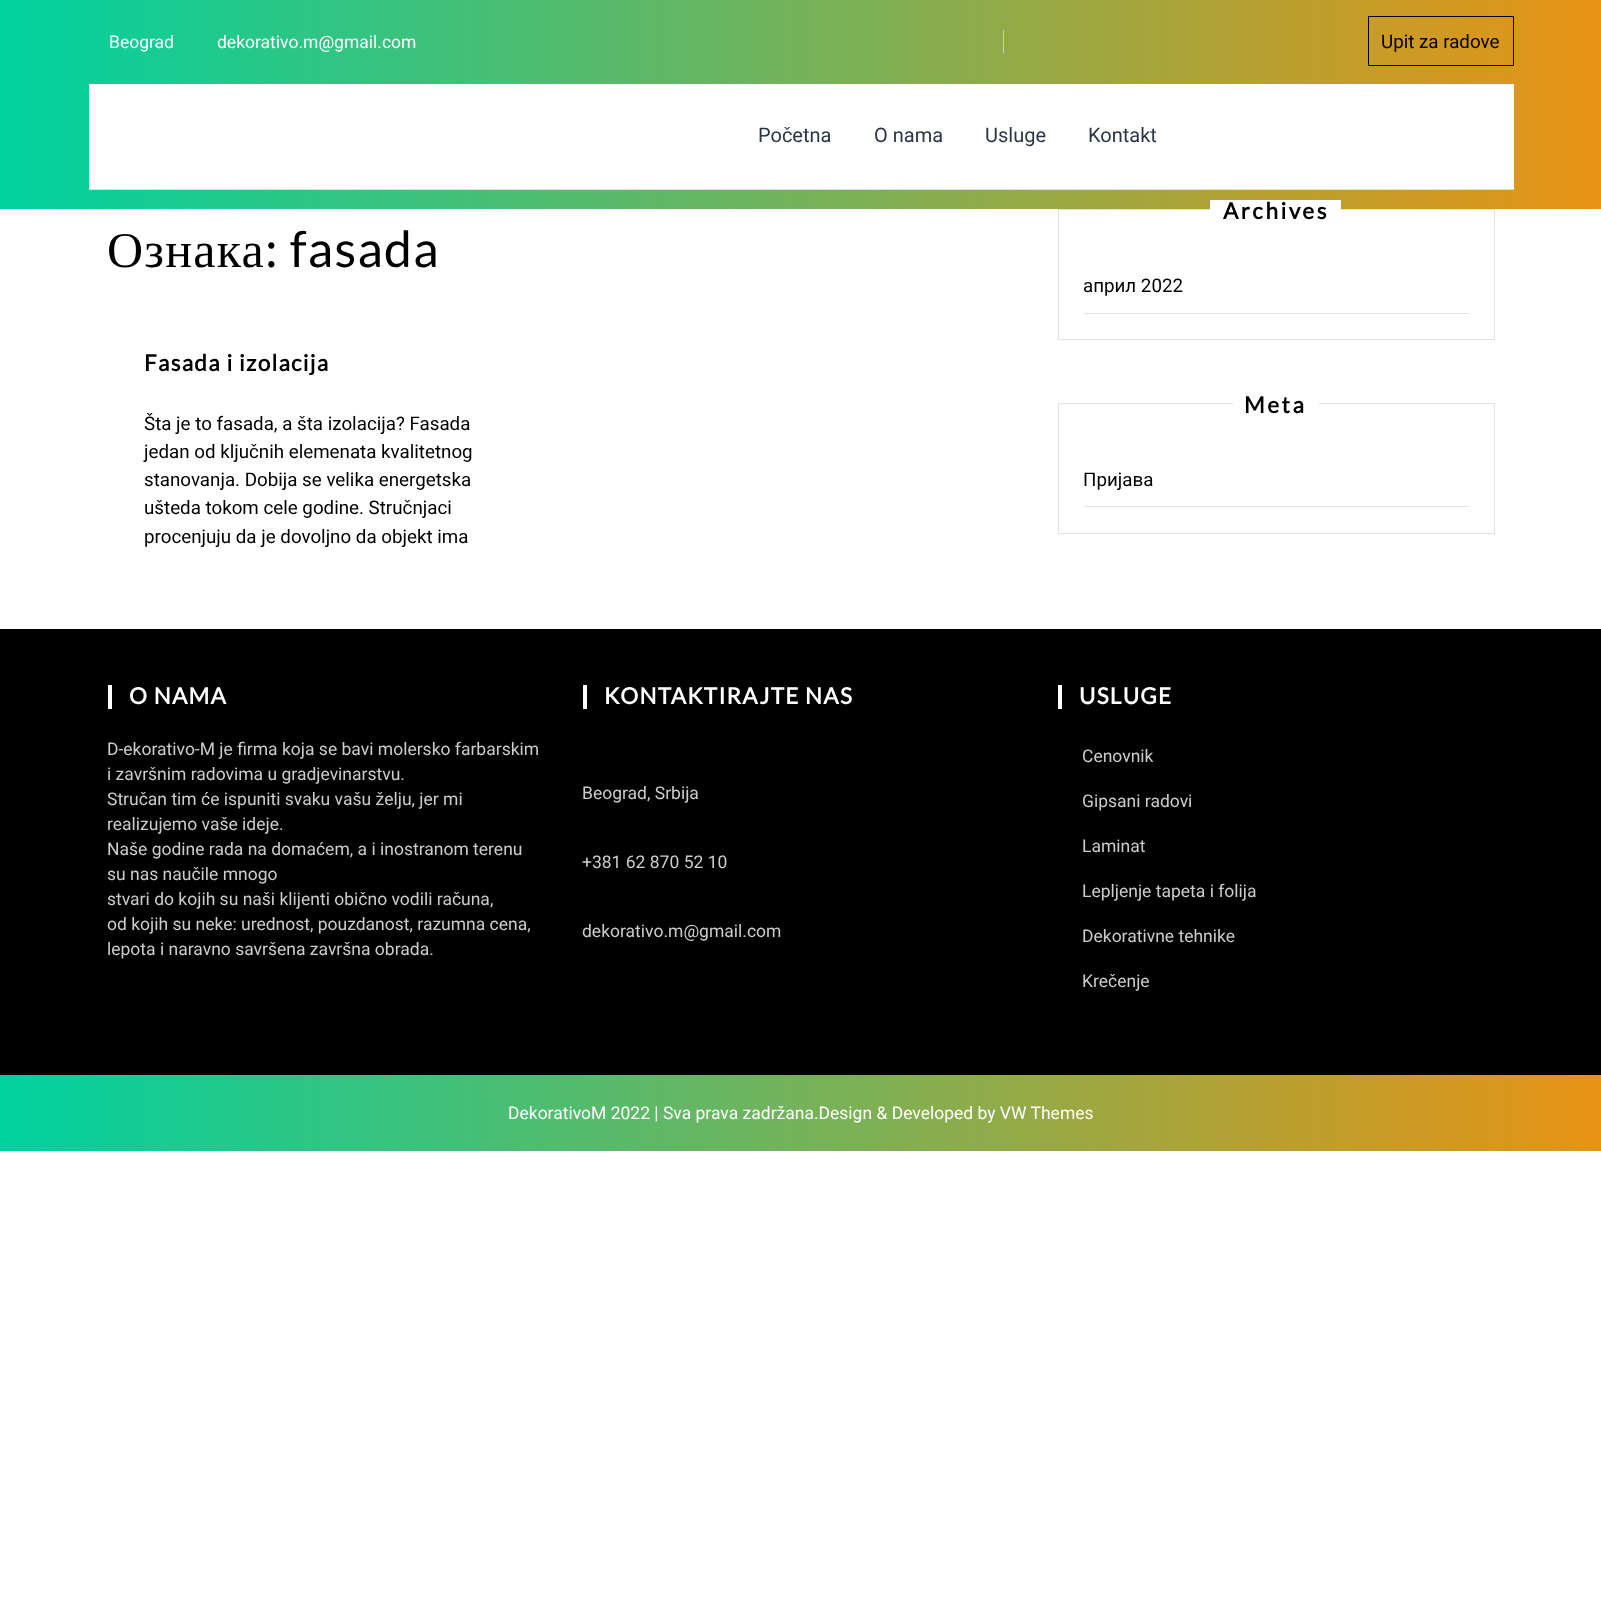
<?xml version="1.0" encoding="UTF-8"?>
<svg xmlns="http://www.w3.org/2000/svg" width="1601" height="1611">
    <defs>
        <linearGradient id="g1" gradientUnits="userSpaceOnUse" x1="0" y1="104" x2="1601" y2="104"><stop offset="0" stop-color="#00D2A0"/><stop offset="1" stop-color="#E89314"/></linearGradient>
        <linearGradient id="g2" gradientUnits="userSpaceOnUse" x1="0" y1="1113" x2="1601" y2="1113"><stop offset="0" stop-color="#00D2A0"/><stop offset="1" stop-color="#E89314"/></linearGradient>
    </defs>
    <rect width="100%" height="100%" fill="#FFFFFF"/>
    <rect x="0" y="0" width="1601" height="209" fill="url(#g1)"/>
    <text x="109" y="48" font-family="Roboto" font-size="17.5" fill="#FFFFFF">Beograd</text>
    <text x="217" y="48" font-family="Roboto" font-size="17.5" fill="#FFFFFF">dekorativo.m@gmail.com</text>
    <rect x="1003" y="30" width="1" height="23" fill="#CCCCCC"/>
    <rect x="1368.5" y="16.5" width="145" height="49" fill="none" stroke="#000000"/>
    <text x="1381" y="48" font-family="Roboto" font-size="18.75" fill="#000000">Upit za radove</text>
    <rect x="89" y="84" width="1425" height="105" fill="#FFFFFF"/>
    <rect x="89" y="189" width="1425" height="1" fill="#DDDDDD"/>
    <text x="758" y="142" font-family="Roboto" font-size="20" fill="#2B3546">Početna</text>
    <text x="874" y="142" font-family="Roboto" font-size="20" fill="#2B3546">O nama</text>
    <text x="985" y="142" font-family="Roboto" font-size="20" fill="#2B3546">Usluge</text>
    <text x="1088" y="142" font-family="Roboto" font-size="20" fill="#2B3546">Kontakt</text>
    <text x="107" y="267" font-family="Liberation Serif" font-size="50" letter-spacing="1.25" fill="#000000">Ознака</text>
    <text x="265" y="267" font-family="Lato" font-size="50" letter-spacing="1.25" fill="#000000">: fasada</text>
    <text x="144" y="371" font-family="Lato" font-size="22.5" font-weight="700" letter-spacing="1.25" fill="#000000">Fasada i izolacija</text>
    <text font-family="Roboto" font-size="18.75" fill="#000000">
        <tspan x="144" y="430">Šta je to fasada, a šta izolacija? Fasada</tspan>
        <tspan x="144" y="458">jedan od ključnih elemenata kvalitetnog</tspan>
        <tspan x="144" y="486">stanovanja. Dobija se velika energetska</tspan>
        <tspan x="144" y="514">ušteda tokom cele godine. Stručnjaci</tspan>
        <tspan x="144" y="543">procenjuju da je dovoljno da objekt ima</tspan>
    </text>
    <rect x="1058.5" y="209.5" width="436" height="130" fill="none" stroke="#E1E1E1"/>
    <rect x="1210" y="200" width="131" height="10" fill="#FFFFFF"/>
    <text x="1223" y="219" font-family="Lato" font-size="22.5" font-weight="700" letter-spacing="2.5" fill="#000000">Archives</text>
    <rect x="1084" y="313" width="385" height="1" fill="#E1E1E1"/>
    <text x="1083" y="292" font-family="Roboto" font-size="18.75" fill="#000000">април 2022</text>
    <rect x="1058.5" y="403.5" width="436" height="130" fill="none" stroke="#E1E1E1"/>
    <rect x="1233" y="403" width="86" height="1" fill="#FFFFFF"/>
    <text x="1244" y="413" font-family="Lato" font-size="22.5" font-weight="700" letter-spacing="2.5" fill="#000000">Meta</text>
    <rect x="1084" y="506" width="385" height="1" fill="#E1E1E1"/>
    <text x="1083" y="486" font-family="Roboto" font-size="18.75" fill="#000000">Пријава</text>
    <rect x="0" y="629" width="1601" height="446" fill="#000000"/>
    <rect x="108" y="685" width="4" height="24" fill="#FFFFFF"/>
    <text x="129" y="704" font-family="Lato" font-size="22.5" font-weight="700" letter-spacing="1.25" fill="#FFFFFF">O NAMA</text>
    <text font-family="Roboto" font-size="17.5" fill="#CCCCCC">
        <tspan x="107" y="755">D-ekorativo-M je firma koja se bavi molersko farbarskim</tspan>
        <tspan x="107" y="780">i završnim radovima u gradjevinarstvu.</tspan>
        <tspan x="107" y="805">Stručan tim će ispuniti svaku vašu želju, jer mi</tspan>
        <tspan x="107" y="830">realizujemo vaše ideje.</tspan>
        <tspan x="107" y="855">Naše godine rada na domaćem, a i inostranom terenu</tspan>
        <tspan x="107" y="880">su nas naučile mnogo</tspan>
        <tspan x="107" y="905">stvari do kojih su naši klijenti obično vodili računa,</tspan>
        <tspan x="107" y="930">od kojih su neke: urednost, pouzdanost, razumna cena,</tspan>
        <tspan x="107" y="955">lepota i naravno savršena završna obrada.</tspan>
    </text>
    <rect x="583" y="685" width="4" height="24" fill="#FFFFFF"/>
    <text x="604" y="704" font-family="Lato" font-size="22.5" font-weight="700" letter-spacing="1.25" fill="#FFFFFF">KONTAKTIRAJTE NAS</text>
    <text x="582" y="799" font-family="Roboto" font-size="17.5" fill="#CCCCCC">Beograd, Srbija</text>
    <text x="582" y="868" font-family="Roboto" font-size="17.5" fill="#CCCCCC">+381 62 870 52 10</text>
    <text x="582" y="937" font-family="Roboto" font-size="17.5" fill="#CCCCCC">dekorativo.m@gmail.com</text>
    <rect x="1058" y="685" width="4" height="24" fill="#FFFFFF"/>
    <text x="1079" y="704" font-family="Lato" font-size="22.5" font-weight="700" letter-spacing="1.25" fill="#FFFFFF">USLUGE</text>
    <text x="1082" y="762" font-family="Roboto" font-size="17.5" fill="#CCCCCC">Cenovnik</text>
    <text x="1082" y="807" font-family="Roboto" font-size="17.5" fill="#CCCCCC">Gipsani radovi</text>
    <text x="1082" y="852" font-family="Roboto" font-size="17.5" fill="#CCCCCC">Laminat</text>
    <text x="1082" y="897" font-family="Roboto" font-size="17.5" fill="#CCCCCC">Lepljenje tapeta i folija</text>
    <text x="1082" y="942" font-family="Roboto" font-size="17.5" fill="#CCCCCC">Dekorativne tehnike</text>
    <text x="1082" y="987" font-family="Roboto" font-size="17.5" fill="#CCCCCC">Krečenje</text>
    <rect x="0" y="1075" width="1601" height="76" fill="url(#g2)"/>
    <text x="508" y="1119" font-family="Roboto" font-size="17.5" fill="#FFFFFF">DekorativoM 2022 | Sva prava zadržana.Design &amp; Developed by VW Themes</text>
</svg>
